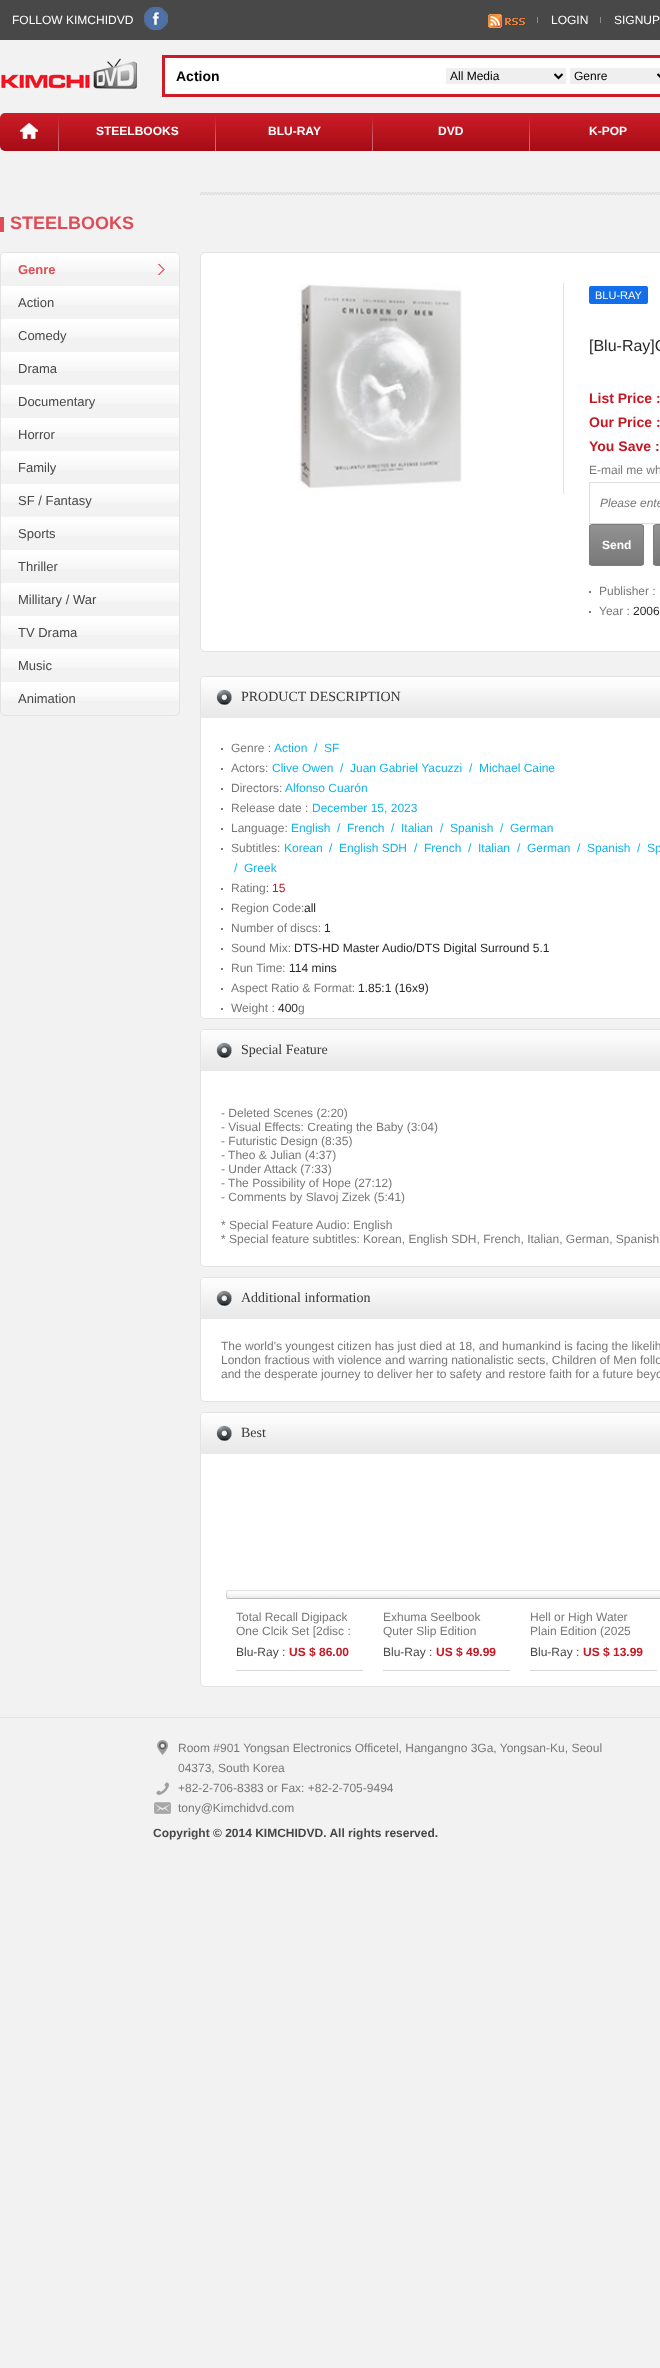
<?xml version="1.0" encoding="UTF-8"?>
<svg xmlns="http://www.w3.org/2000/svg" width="660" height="2368">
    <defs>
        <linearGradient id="g1" gradientUnits="userSpaceOnUse" x1="500" y1="151" x2="500" y2="113"><stop offset="0" stop-color="#A50C16"/><stop offset="1" stop-color="#CD1C28"/></linearGradient>
        <clipPath id="clip1"><rect x="589" y="524" width="55" height="42" rx="3"/></clipPath>
        <linearGradient id="g2" gradientUnits="userSpaceOnUse" x1="617" y1="525" x2="617" y2="565"><stop offset="0" stop-color="#929292"/><stop offset="1" stop-color="#787878"/></linearGradient>
        <clipPath id="clip2"><rect x="653" y="524" width="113" height="42" rx="3"/></clipPath>
        <linearGradient id="g3" gradientUnits="userSpaceOnUse" x1="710" y1="525" x2="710" y2="565"><stop offset="0" stop-color="#929292"/><stop offset="1" stop-color="#787878"/></linearGradient>
    </defs>
    <rect width="100%" height="100%" fill="#F2F2F2"/>
    <rect x="0" y="0" width="660" height="40" fill="#484848"/>
    <text x="12" y="24" font-family="Liberation Sans" font-size="12" fill="#FFFFFF">FOLLOW KIMCHIDVD</text>
    <image x="144" y="7" width="24" height="23" href="img_01.png"/>
    <rect x="537" y="17" width="1" height="6" fill="#8A8A8A"/>
    <image x="488" y="14" width="37" height="14" href="img_02.png"/>
    <rect x="600" y="17" width="1" height="6" fill="#8A8A8A"/>
    <text x="551" y="24" font-family="Liberation Sans" font-size="12" fill="#FFFFFF">LOGIN</text>
    <text x="614" y="24" font-family="Liberation Sans" font-size="12" fill="#FFFFFF">SIGNUP</text>
    <image x="1" y="58" width="136" height="31" href="img_03.png"/>
    <rect x="163.5" y="56.5" width="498" height="39" fill="#FFFFFF" stroke="#CD1C28" stroke-width="3"/>
    <text x="176" y="81" font-family="Liberation Sans" font-size="14" font-weight="700" fill="#000000">Action</text>
    <rect x="446" y="68" width="120" height="16" fill="#EFEFEF"/>
    <path d="M 554.5 74 L 558.5 78 L 562.5 74" fill="none" stroke="#000000" stroke-width="2"/>
    <text x="450" y="80" font-family="Liberation Sans" font-size="12" fill="#000000">All Media</text>
    <rect x="570" y="68" width="90" height="16" fill="#EFEFEF"/>
    <path d="M 657.5 74 L 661.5 78 L 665.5 74" fill="none" stroke="#000000" stroke-width="2"/>
    <text x="574" y="80" font-family="Liberation Sans" font-size="12" fill="#000000">Genre</text>
    <rect x="0" y="113" width="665" height="38" rx="5" fill="url(#g1)"/>
    <image x="20" y="123" width="18" height="16" href="img_04.png"/>
    <image x="58" y="117" width="1" height="34" href="img_05.png"/>
    <text x="96" y="135" font-family="Liberation Sans" font-size="12" font-weight="700" fill="#FFFFFF">STEELBOOKS</text>
    <image x="215" y="117" width="1" height="34" href="img_05.png"/>
    <text x="268" y="135" font-family="Liberation Sans" font-size="12" font-weight="700" fill="#FFFFFF">BLU-RAY</text>
    <image x="372" y="117" width="1" height="34" href="img_05.png"/>
    <text x="438" y="135" font-family="Liberation Sans" font-size="12" font-weight="700" fill="#FFFFFF">DVD</text>
    <image x="529" y="117" width="1" height="34" href="img_05.png"/>
    <text x="589" y="135" font-family="Liberation Sans" font-size="12" font-weight="700" fill="#FFFFFF">K-POP</text>
    <rect x="0" y="217" width="4" height="15" fill="#DF4E58"/>
    <text x="10" y="229" font-family="Liberation Sans" font-size="18" font-weight="700" fill="#DF4E58">STEELBOOKS</text>
    <rect x="0.5" y="252.5" width="179" height="463" rx="4.5" fill="none" stroke="#E3E3E3"/>
    <image x="1" y="253" width="178" height="19" href="img_06.png"/>
    <image x="158" y="264" width="7" height="11" href="img_07.png"/>
    <text x="18" y="274" font-family="Liberation Sans" font-size="13" font-weight="700" fill="#DF4E58">Genre</text>
    <image x="1" y="286" width="178" height="19" href="img_08.png"/>
    <text x="18" y="307" font-family="Liberation Sans" font-size="13" fill="#484848">Action</text>
    <image x="1" y="319" width="178" height="19" href="img_08.png"/>
    <text x="18" y="340" font-family="Liberation Sans" font-size="13" fill="#484848">Comedy</text>
    <image x="1" y="352" width="178" height="19" href="img_08.png"/>
    <text x="18" y="373" font-family="Liberation Sans" font-size="13" fill="#484848">Drama</text>
    <image x="1" y="385" width="178" height="19" href="img_08.png"/>
    <text x="18" y="406" font-family="Liberation Sans" font-size="13" fill="#484848">Documentary</text>
    <image x="1" y="418" width="178" height="19" href="img_08.png"/>
    <text x="18" y="439" font-family="Liberation Sans" font-size="13" fill="#484848">Horror</text>
    <image x="1" y="451" width="178" height="19" href="img_08.png"/>
    <text x="18" y="472" font-family="Liberation Sans" font-size="13" fill="#484848">Family</text>
    <image x="1" y="484" width="178" height="19" href="img_08.png"/>
    <text x="18" y="505" font-family="Liberation Sans" font-size="13" fill="#484848">SF / Fantasy</text>
    <image x="1" y="517" width="178" height="19" href="img_08.png"/>
    <text x="18" y="538" font-family="Liberation Sans" font-size="13" fill="#484848">Sports</text>
    <image x="1" y="550" width="178" height="19" href="img_08.png"/>
    <text x="18" y="571" font-family="Liberation Sans" font-size="13" fill="#484848">Thriller</text>
    <image x="1" y="583" width="178" height="19" href="img_08.png"/>
    <text x="18" y="604" font-family="Liberation Sans" font-size="13" fill="#484848">Millitary / War</text>
    <image x="1" y="616" width="178" height="19" href="img_08.png"/>
    <text x="18" y="637" font-family="Liberation Sans" font-size="13" fill="#484848">TV Drama</text>
    <image x="1" y="649" width="178" height="19" href="img_08.png"/>
    <text x="18" y="670" font-family="Liberation Sans" font-size="13" fill="#484848">Music</text>
    <image x="1" y="682" width="178" height="19" href="img_08.png"/>
    <text x="18" y="703" font-family="Liberation Sans" font-size="13" fill="#484848">Animation</text>
    <image x="200" y="192" width="460" height="3" href="img_09.png"/>
    <rect x="200.5" y="252.5" width="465" height="399" rx="4.5" fill="#FFFFFF" stroke="#E3E3E3"/>
    <rect x="563" y="283" width="1" height="211" fill="#E3E3E3"/>
    <image x="297" y="283" width="165" height="206" href="img_10.png"/>
    <rect x="589" y="286" width="59" height="18" rx="2" fill="#136EEA"/>
    <text x="595" y="299" font-family="Liberation Sans" font-size="11" fill="#FFFFFF">BLU-RAY</text>
    <text x="589" y="351" font-family="Liberation Sans" font-size="16" fill="#282828">[Blu-Ray]C</text>
    <text font-family="Liberation Sans" font-size="14" font-weight="700" fill="#C41824">
        <tspan x="589" y="403">List Price :</tspan>
        <tspan x="589" y="427">Our Price :</tspan>
        <tspan x="589" y="451">You Save :</tspan>
    </text>
    <text x="589" y="474" font-family="Liberation Sans" font-size="12" fill="#787878">E-mail me wh</text>
    <rect x="589.5" y="482.5" width="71" height="41" fill="none" stroke="#DDDDDD"/>
    <text x="600" y="507" font-family="Liberation Sans" font-size="12" font-style="italic" fill="#787878">Please ente</text>
    <g clip-path="url(#clip1)">
        <rect x="589" y="525" width="55" height="40" fill="url(#g2)"/>
    </g>
    <rect x="589.5" y="524.5" width="54" height="41" rx="2.5" fill="none" stroke="#7C7C7C"/>
    <text x="602" y="549" font-family="Liberation Sans" font-size="12" font-weight="700" fill="#FFFFFF">Send</text>
    <g clip-path="url(#clip2)">
        <rect x="653" y="525" width="7" height="40" fill="url(#g3)"/>
    </g>
    <rect x="653.5" y="524.5" width="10" height="41" rx="2.5" fill="none" stroke="#7C7C7C"/>
    <rect x="589" y="591" width="2" height="2" fill="#797979"/>
    <text x="599" y="595" font-family="Liberation Sans" font-size="12" fill="#787878">Publisher :</text>
    <rect x="589" y="611" width="2" height="2" fill="#797979"/>
    <text x="599" y="615" font-family="Liberation Sans" font-size="12" fill="#787878">Year :</text>
    <text x="633" y="615" font-family="Liberation Sans" font-size="12" fill="#282828">2006</text>
    <rect x="200.5" y="676.5" width="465" height="342" rx="4.5" fill="#FFFFFF" stroke="#E3E3E3"/>
    <image x="201" y="677" width="459" height="41" href="img_11.png"/>
    <text x="241" y="701" font-family="Liberation Serif" font-size="14" fill="#3A3A3A">PRODUCT DESCRIPTION</text>
    <rect x="221" y="748" width="2" height="2" fill="#797979"/>
    <text x="231" y="752" font-family="Liberation Sans" font-size="12" fill="#787878">Genre :</text>
    <text x="274" y="752" font-family="Liberation Sans" font-size="12" fill="#13B4EA">Action</text>
    <text x="314" y="752" font-family="Liberation Sans" font-size="12" fill="#13B4EA">/</text>
    <text x="324" y="752" font-family="Liberation Sans" font-size="12" fill="#13B4EA">SF</text>
    <rect x="221" y="768" width="2" height="2" fill="#797979"/>
    <text x="231" y="772" font-family="Liberation Sans" font-size="12" fill="#787878">Actors:</text>
    <text x="272" y="772" font-family="Liberation Sans" font-size="12" fill="#13B4EA">Clive Owen</text>
    <text x="340" y="772" font-family="Liberation Sans" font-size="12" fill="#13B4EA">/</text>
    <text x="350" y="772" font-family="Liberation Sans" font-size="12" fill="#13B4EA">Juan Gabriel Yacuzzi</text>
    <text x="469" y="772" font-family="Liberation Sans" font-size="12" fill="#13B4EA">/</text>
    <text x="479" y="772" font-family="Liberation Sans" font-size="12" fill="#13B4EA">Michael Caine</text>
    <rect x="221" y="788" width="2" height="2" fill="#797979"/>
    <text x="231" y="792" font-family="Liberation Sans" font-size="12" fill="#787878">Directors:</text>
    <text x="285" y="792" font-family="Liberation Sans" font-size="12" fill="#13B4EA">Alfonso Cuarón</text>
    <rect x="221" y="808" width="2" height="2" fill="#797979"/>
    <text x="231" y="812" font-family="Liberation Sans" font-size="12" fill="#787878">Release date :</text>
    <text x="312" y="812" font-family="Liberation Sans" font-size="12" fill="#13B4EA">December 15, 2023</text>
    <rect x="221" y="828" width="2" height="2" fill="#797979"/>
    <text x="231" y="832" font-family="Liberation Sans" font-size="12" fill="#787878">Language:</text>
    <text x="291" y="832" font-family="Liberation Sans" font-size="12" fill="#13B4EA">English</text>
    <text x="337" y="832" font-family="Liberation Sans" font-size="12" fill="#13B4EA">/</text>
    <text x="347" y="832" font-family="Liberation Sans" font-size="12" fill="#13B4EA">French</text>
    <text x="391" y="832" font-family="Liberation Sans" font-size="12" fill="#13B4EA">/</text>
    <text x="401" y="832" font-family="Liberation Sans" font-size="12" fill="#13B4EA">Italian</text>
    <text x="440" y="832" font-family="Liberation Sans" font-size="12" fill="#13B4EA">/</text>
    <text x="450" y="832" font-family="Liberation Sans" font-size="12" fill="#13B4EA">Spanish</text>
    <text x="500" y="832" font-family="Liberation Sans" font-size="12" fill="#13B4EA">/</text>
    <text x="510" y="832" font-family="Liberation Sans" font-size="12" fill="#13B4EA">German</text>
    <rect x="221" y="848" width="2" height="2" fill="#797979"/>
    <text x="231" y="852" font-family="Liberation Sans" font-size="12" fill="#787878">Subtitles:</text>
    <text x="284" y="852" font-family="Liberation Sans" font-size="12" fill="#13B4EA">Korean</text>
    <text x="329" y="852" font-family="Liberation Sans" font-size="12" fill="#13B4EA">/</text>
    <text x="339" y="852" font-family="Liberation Sans" font-size="12" fill="#13B4EA">English SDH</text>
    <text x="414" y="852" font-family="Liberation Sans" font-size="12" fill="#13B4EA">/</text>
    <text x="424" y="852" font-family="Liberation Sans" font-size="12" fill="#13B4EA">French</text>
    <text x="468" y="852" font-family="Liberation Sans" font-size="12" fill="#13B4EA">/</text>
    <text x="478" y="852" font-family="Liberation Sans" font-size="12" fill="#13B4EA">Italian</text>
    <text x="517" y="852" font-family="Liberation Sans" font-size="12" fill="#13B4EA">/</text>
    <text x="527" y="852" font-family="Liberation Sans" font-size="12" fill="#13B4EA">German</text>
    <text x="577" y="852" font-family="Liberation Sans" font-size="12" fill="#13B4EA">/</text>
    <text x="587" y="852" font-family="Liberation Sans" font-size="12" fill="#13B4EA">Spanish</text>
    <text x="637" y="852" font-family="Liberation Sans" font-size="12" fill="#13B4EA">/</text>
    <text x="647" y="852" font-family="Liberation Sans" font-size="12" fill="#13B4EA">Sp</text>
    <text x="234" y="872" font-family="Liberation Sans" font-size="12" fill="#13B4EA">/</text>
    <text x="244" y="872" font-family="Liberation Sans" font-size="12" fill="#13B4EA">Greek</text>
    <rect x="221" y="888" width="2" height="2" fill="#797979"/>
    <text x="231" y="892" font-family="Liberation Sans" font-size="12" fill="#787878">Rating:</text>
    <text x="272" y="892" font-family="Liberation Sans" font-size="12" fill="#C41824">15</text>
    <rect x="221" y="908" width="2" height="2" fill="#797979"/>
    <text x="231" y="912" font-family="Liberation Sans" font-size="12" fill="#787878">Region Code:</text>
    <text x="304" y="912" font-family="Liberation Sans" font-size="12" fill="#282828">all</text>
    <rect x="221" y="928" width="2" height="2" fill="#797979"/>
    <text x="231" y="932" font-family="Liberation Sans" font-size="12" fill="#787878">Number of discs:</text>
    <text x="324" y="932" font-family="Liberation Sans" font-size="12" fill="#282828">1</text>
    <rect x="221" y="948" width="2" height="2" fill="#797979"/>
    <text x="231" y="952" font-family="Liberation Sans" font-size="12" fill="#787878">Sound Mix:</text>
    <text x="294" y="952" font-family="Liberation Sans" font-size="12" fill="#282828">DTS-HD Master Audio/DTS Digital Surround 5.1</text>
    <rect x="221" y="968" width="2" height="2" fill="#797979"/>
    <text x="231" y="972" font-family="Liberation Sans" font-size="12" fill="#787878">Run Time:</text>
    <text x="289" y="972" font-family="Liberation Sans" font-size="12" fill="#282828">114 mins</text>
    <rect x="221" y="988" width="2" height="2" fill="#797979"/>
    <text x="231" y="992" font-family="Liberation Sans" font-size="12" fill="#787878">Aspect Ratio &amp; Format:</text>
    <text x="358" y="992" font-family="Liberation Sans" font-size="12" fill="#282828">1.85:1 (16x9)</text>
    <rect x="221" y="1008" width="2" height="2" fill="#797979"/>
    <text x="231" y="1012" font-family="Liberation Sans" font-size="12" fill="#787878">Weight :</text>
    <text x="278" y="1012" font-family="Liberation Sans" font-size="12" fill="#282828">400</text>
    <text x="298" y="1012" font-family="Liberation Sans" font-size="12" fill="#787878">g</text>
    <rect x="200.5" y="1029.5" width="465" height="237" rx="4.5" fill="#FFFFFF" stroke="#E3E3E3"/>
    <image x="201" y="1030" width="459" height="41" href="img_11.png"/>
    <text x="241" y="1054" font-family="Liberation Serif" font-size="14" fill="#3A3A3A">Special Feature</text>
    <text font-family="Liberation Sans" font-size="12" fill="#787878">
        <tspan x="221" y="1117">- Deleted Scenes (2:20)</tspan>
        <tspan x="221" y="1131">- Visual Effects: Creating the Baby (3:04)</tspan>
        <tspan x="221" y="1145">- Futuristic Design (8:35)</tspan>
        <tspan x="221" y="1159">- Theo &amp; Julian (4:37)</tspan>
        <tspan x="221" y="1173">- Under Attack (7:33)</tspan>
        <tspan x="221" y="1187">- The Possibility of Hope (27:12)</tspan>
        <tspan x="221" y="1201">- Comments by Slavoj Zizek (5:41)</tspan>
    </text>
    <text font-family="Liberation Sans" font-size="12" fill="#787878">
        <tspan x="221" y="1229">* Special Feature Audio: English</tspan>
        <tspan x="221" y="1243">* Special feature subtitles: Korean, English SDH, French, Italian, German, Spanish</tspan>
    </text>
    <rect x="200.5" y="1277.5" width="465" height="124" rx="4.5" fill="#FFFFFF" stroke="#E3E3E3"/>
    <image x="201" y="1278" width="459" height="41" href="img_11.png"/>
    <text x="241" y="1302" font-family="Liberation Serif" font-size="14" fill="#3A3A3A">Additional information</text>
    <text font-family="Liberation Sans" font-size="12" fill="#787878">
        <tspan x="221" y="1350">The world's youngest citizen has just died at 18, and humankind is facing the likelih</tspan>
        <tspan x="221" y="1364">London fractious with violence and warring nationalistic sects, Children of Men follo</tspan>
        <tspan x="221" y="1378">and the desperate journey to deliver her to safety and restore faith for a future beyo</tspan>
    </text>
    <rect x="200.5" y="1412.5" width="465" height="274" rx="4.5" fill="#FFFFFF" stroke="#E3E3E3"/>
    <image x="201" y="1413" width="459" height="41" href="img_11.png"/>
    <text x="241" y="1437" font-family="Liberation Serif" font-size="14" fill="#3A3A3A">Best</text>
    <image x="226" y="1590" width="434" height="9" href="img_12.png"/>
    <rect x="236" y="1670" width="127" height="1" fill="#D6D6D6"/>
    <text font-family="Liberation Sans" font-size="12" fill="#787878">
        <tspan x="236" y="1621">Total Recall Digipack</tspan>
        <tspan x="236" y="1635">One Clcik Set [2disc :</tspan>
    </text>
    <text x="236" y="1656" font-family="Liberation Sans" font-size="12" fill="#484848">Blu-Ray :</text>
    <text x="289" y="1656" font-family="Liberation Sans" font-size="12" font-weight="700" fill="#C41824">US $ 86.00</text>
    <rect x="383" y="1670" width="127" height="1" fill="#D6D6D6"/>
    <text font-family="Liberation Sans" font-size="12" fill="#787878">
        <tspan x="383" y="1621">Exhuma Seelbook</tspan>
        <tspan x="383" y="1635">Quter Slip Edition</tspan>
    </text>
    <text x="383" y="1656" font-family="Liberation Sans" font-size="12" fill="#484848">Blu-Ray :</text>
    <text x="436" y="1656" font-family="Liberation Sans" font-size="12" font-weight="700" fill="#C41824">US $ 49.99</text>
    <rect x="530" y="1670" width="127" height="1" fill="#D6D6D6"/>
    <text font-family="Liberation Sans" font-size="12" fill="#787878">
        <tspan x="530" y="1621">Hell or High Water</tspan>
        <tspan x="530" y="1635">Plain Edition (2025</tspan>
    </text>
    <text x="530" y="1656" font-family="Liberation Sans" font-size="12" fill="#484848">Blu-Ray :</text>
    <text x="583" y="1656" font-family="Liberation Sans" font-size="12" font-weight="700" fill="#C41824">US $ 13.99</text>
    <rect x="0" y="1717" width="660" height="1" fill="#E3E3E3"/>
    <image x="157" y="1740" width="11" height="15" href="img_13.png"/>
    <text font-family="Liberation Sans" font-size="12" fill="#787878">
        <tspan x="178" y="1752">Room #901 Yongsan Electronics Officetel, Hangangno 3Ga, Yongsan-Ku, Seoul</tspan>
        <tspan x="178" y="1772">04373, South Korea</tspan>
    </text>
    <image x="156" y="1782" width="13" height="13" href="img_14.png"/>
    <text x="178" y="1792" font-family="Liberation Sans" font-size="12" fill="#787878">+82-2-706-8383 or Fax: +82-2-705-9494</text>
    <image x="154" y="1802" width="17" height="12" href="img_15.png"/>
    <text x="178" y="1812" font-family="Liberation Sans" font-size="12" fill="#787878">tony@Kimchidvd.com</text>
    <text x="153" y="1837" font-family="Liberation Sans" font-size="12" font-weight="700" fill="#484848">Copyright © 2014 KIMCHIDVD. All rights reserved.</text>
</svg>
